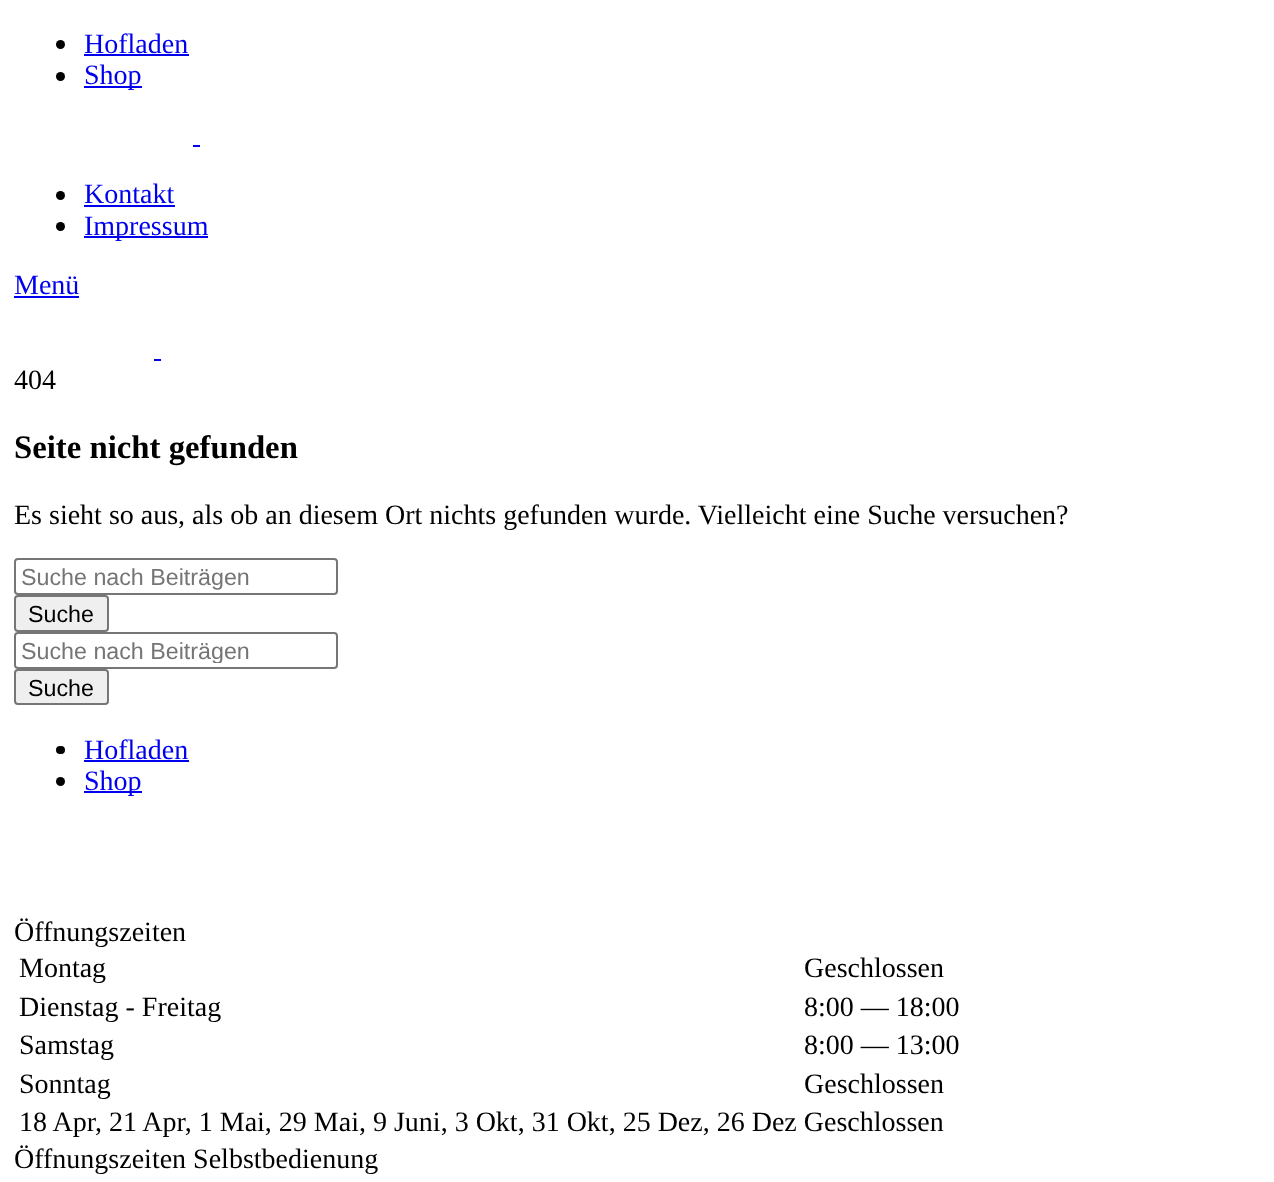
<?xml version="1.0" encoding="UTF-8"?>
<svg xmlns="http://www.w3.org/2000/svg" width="1274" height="1182">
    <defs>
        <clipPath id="clip1"><rect x="21" y="637" width="310" height="26"/></clipPath>
    </defs>
    <rect width="100%" height="100%" fill="#FFFFFF"/>
    <circle cx="60.5" cy="44.5" r="4.5" fill="#000000"/>
    <text x="84" y="53" font-family="Liberation Serif" font-size="28" fill="#0000EE">Hofladen</text>
    <rect x="84" y="54" width="105" height="2" fill="#0000EE"/>
    <circle cx="60.5" cy="76.5" r="4.5" fill="#000000"/>
    <rect x="84" y="86" width="58" height="2" fill="#0000EE"/>
    <text x="84" y="84" font-family="Liberation Serif" font-size="28" fill="#0000EE">Shop</text>
    <rect x="193" y="145" width="7" height="2" fill="#0000EE"/>
    <circle cx="60.5" cy="195.5" r="4.5" fill="#000000"/>
    <text x="84" y="203" font-family="Liberation Serif" font-size="28" fill="#0000EE">Kontakt</text>
    <rect x="84" y="205" width="91" height="2" fill="#0000EE"/>
    <circle cx="60.5" cy="226.5" r="4.5" fill="#000000"/>
    <rect x="84" y="236" width="124" height="2" fill="#0000EE"/>
    <text x="84" y="235" font-family="Liberation Serif" font-size="28" fill="#0000EE">Impressum</text>
    <text x="14" y="294" font-family="Liberation Serif" font-size="28" fill="#0000EE">Menü</text>
    <rect x="14" y="296" width="65" height="2" fill="#0000EE"/>
    <rect x="154" y="359" width="7" height="2" fill="#0000EE"/>
    <text x="14" y="389" font-family="Liberation Serif" font-size="28" fill="#000000">404</text>
    <text x="14" y="458" font-family="Liberation Serif" font-size="32.75" font-weight="700" fill="#000000">Seite nicht gefunden</text>
    <text x="14" y="524" font-family="Liberation Serif" font-size="28" fill="#000000">Es sieht so aus, als ob an diesem Ort nichts gefunden wurde. Vielleicht eine Suche versuchen?</text>
    <rect x="15" y="559" width="322" height="35" rx="3" fill="none" stroke="#767676" stroke-width="2"/>
    <text x="21" y="585" font-family="Liberation Sans" font-size="23.25" fill="#757575">Suche nach Beiträgen</text>
    <rect x="15" y="596" width="93" height="35" rx="3" fill="#EFEFEF" stroke="#767676" stroke-width="2"/>
    <text x="28" y="622" font-family="Liberation Sans" font-size="23.25" fill="#000000">Suche</text>
    <rect x="15" y="633" width="322" height="35" rx="3" fill="none" stroke="#767676" stroke-width="2"/>
    <g clip-path="url(#clip1)">
        <text x="21" y="659" font-family="Liberation Sans" font-size="23.25" fill="#757575">Suche nach Beiträgen</text>
    </g>
    <rect x="15" y="670" width="93" height="34" rx="3" fill="#EFEFEF" stroke="#767676" stroke-width="2"/>
    <text x="28" y="696" font-family="Liberation Sans" font-size="23.25" fill="#000000">Suche</text>
    <rect x="56" y="746" width="9" height="8" rx="4" fill="#000000"/>
    <text x="84" y="759" font-family="Liberation Serif" font-size="28" fill="#0000EE">Hofladen</text>
    <rect x="84" y="760" width="105" height="2" fill="#0000EE"/>
    <circle cx="60.5" cy="781.5" r="4.5" fill="#000000"/>
    <rect x="84" y="791" width="58" height="2" fill="#0000EE"/>
    <text x="84" y="790" font-family="Liberation Serif" font-size="28" fill="#0000EE">Shop</text>
    <text x="14" y="941" font-family="Liberation Serif" font-size="28" fill="#000000">Öffnungszeiten</text>
    <text x="19" y="977" font-family="Liberation Serif" font-size="28" fill="#000000">Montag</text>
    <text x="804" y="977" font-family="Liberation Serif" font-size="28" fill="#000000">Geschlossen</text>
    <text x="19" y="1016" font-family="Liberation Serif" font-size="28" fill="#000000">Dienstag - Freitag</text>
    <text x="804" y="1016" font-family="Liberation Serif" font-size="28" fill="#000000">8:00 — 18:00</text>
    <text x="19" y="1054" font-family="Liberation Serif" font-size="28" fill="#000000">Samstag</text>
    <text x="804" y="1054" font-family="Liberation Serif" font-size="28" fill="#000000">8:00 — 13:00</text>
    <text x="19" y="1093" font-family="Liberation Serif" font-size="28" fill="#000000">Sonntag</text>
    <text x="804" y="1093" font-family="Liberation Serif" font-size="28" fill="#000000">Geschlossen</text>
    <text x="19" y="1131" font-family="Liberation Serif" font-size="28" fill="#000000">18 Apr, 21 Apr, 1 Mai, 29 Mai, 9 Juni, 3 Okt, 31 Okt, 25 Dez, 26 Dez Geschlossen</text>
    <text x="14" y="1168" font-family="Liberation Serif" font-size="28" fill="#000000">Öffnungszeiten Selbstbedienung</text>
</svg>
